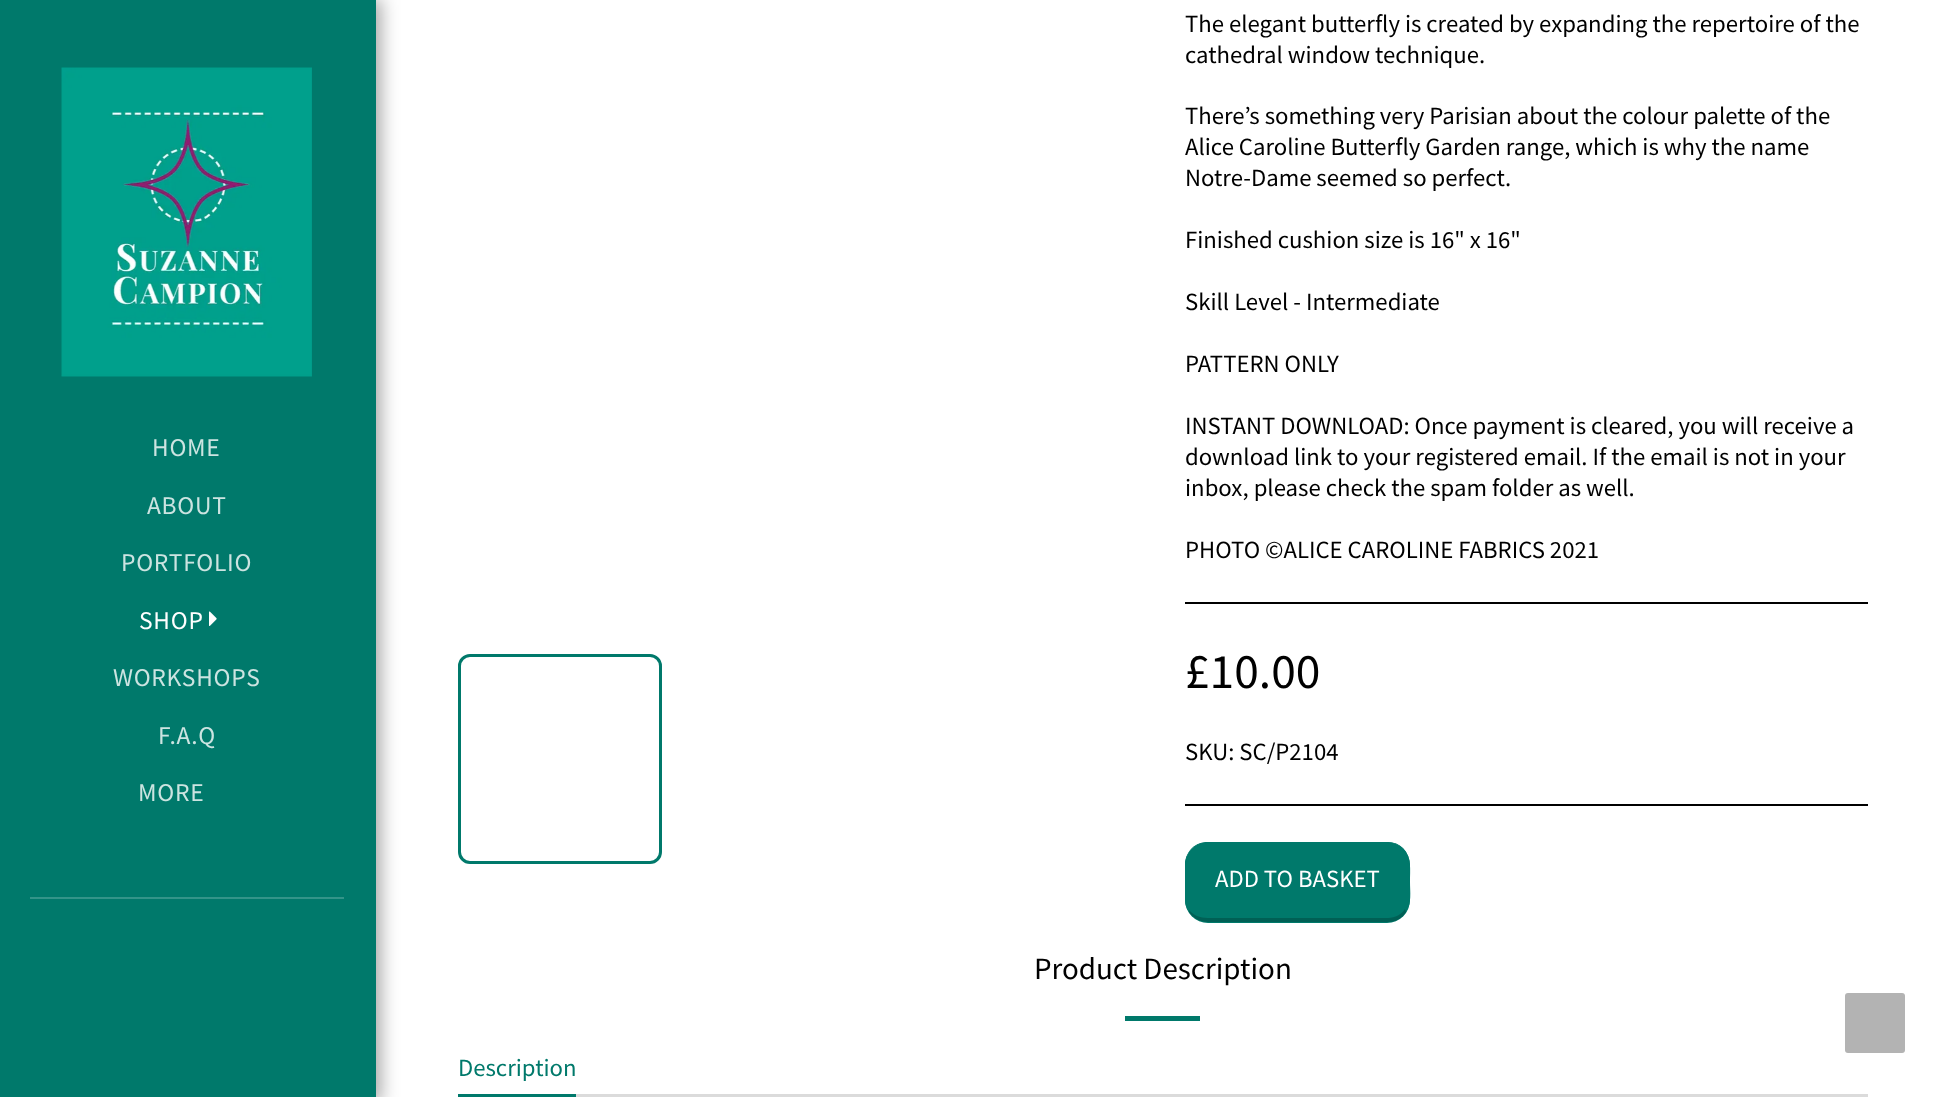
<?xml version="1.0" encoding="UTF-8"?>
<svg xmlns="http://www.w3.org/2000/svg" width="1949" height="1097">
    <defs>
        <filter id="blur1" x="-50%" y="-200%" width="200%" height="500%"><feGaussianBlur stdDeviation="9"/></filter>
    </defs>
    <rect width="100%" height="100%" fill="#FFFFFF"/>
    <rect x="0" y="-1" width="381" height="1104" fill="#000000" fill-opacity="0.35" filter="url(#blur1)"/>
    <rect x="0" y="0" width="376" height="1097" fill="#00796B"/>
    <image x="61" y="67" width="251" height="310" href="img_01.png"/>
    <text x="152" y="456" font-family="Source Sans Pro" font-size="25.5" letter-spacing="0.75" fill="#CCE4E1">HOME</text>
    <text x="147" y="514" font-family="Source Sans Pro" font-size="25.5" letter-spacing="0.75" fill="#CCE4E1">ABOUT</text>
    <text x="121" y="571" font-family="Source Sans Pro" font-size="25.5" letter-spacing="0.75" fill="#CCE4E1">PORTFOLIO</text>
    <text x="139" y="629" font-family="Source Sans Pro" font-size="25.5" letter-spacing="0.75" fill="#FFFFFF">SHOP</text>
    <image x="209" y="611" width="8" height="15" href="img_02.png"/>
    <text x="113" y="686" font-family="Source Sans Pro" font-size="25.5" letter-spacing="0.75" fill="#CCE4E1">WORKSHOPS</text>
    <text x="158" y="744" font-family="Source Sans Pro" font-size="25.5" letter-spacing="0.75" fill="#CCE4E1">F.A.Q</text>
    <text x="138" y="801" font-family="Source Sans Pro" font-size="25.5" letter-spacing="0.75" fill="#CCE4E1">MORE</text>
    <rect x="30" y="897" width="314" height="2" fill="#339489"/>
    <rect x="459.5" y="655.5" width="201" height="207" rx="10.5" fill="none" stroke="#00796B" stroke-width="3"/>
    <text font-family="Source Sans Pro" font-size="24.75" fill="#000000">
        <tspan x="1185" y="32">The elegant butterfly is created by expanding the repertoire of the</tspan>
        <tspan x="1185" y="63">cathedral window technique.</tspan>
    </text>
    <text font-family="Source Sans Pro" font-size="24.75" fill="#000000">
        <tspan x="1185" y="124">There’s something very Parisian about the colour palette of the</tspan>
        <tspan x="1185" y="155">Alice Caroline Butterfly Garden range, which is why the name</tspan>
        <tspan x="1185" y="186">Notre-Dame seemed so perfect.</tspan>
    </text>
    <text x="1185" y="248" font-family="Source Sans Pro" font-size="24.75" fill="#000000">Finished cushion size is 16" x 16"</text>
    <text x="1185" y="310" font-family="Source Sans Pro" font-size="24.75" fill="#000000">Skill Level - Intermediate</text>
    <text x="1185" y="372" font-family="Source Sans Pro" font-size="24.75" fill="#000000">PATTERN ONLY</text>
    <text font-family="Source Sans Pro" font-size="24.75" fill="#000000">
        <tspan x="1185" y="434">INSTANT DOWNLOAD: Once payment is cleared, you will receive a</tspan>
        <tspan x="1185" y="465">download link to your registered email. If the email is not in your</tspan>
        <tspan x="1185" y="496">inbox, please check the spam folder as well.</tspan>
    </text>
    <text x="1185" y="558" font-family="Source Sans Pro" font-size="24.75" fill="#000000">PHOTO ©ALICE CAROLINE FABRICS 2021</text>
    <rect x="1185" y="602" width="683" height="2" fill="#000000"/>
    <text x="1185" y="688" font-family="Source Sans Pro" font-size="49.5" fill="#000000">£10.00</text>
    <text x="1185" y="760" font-family="Source Sans Pro" font-size="24.75" fill="#000000">SKU: SC/P2104</text>
    <rect x="1185" y="804" width="683" height="2" fill="#000000"/>
    <rect x="1185" y="842" width="225" height="81" rx="23" fill="#00796B"/>
    <path d="M 1208 842 C 1202 842 1196 844 1192 848 V 849 C 1196 845 1202 843 1208 843 H 1388 C 1394 843 1399 845 1402 849 L 1403 848 C 1399 844 1394 842 1388 842 Z" fill="#00796B"/>
    <path d="M 1403 848 C 1412 857 1410 870 1410 882 C 1410 892 1412 903 1406 912 L 1405 909 C 1407 906 1408 903 1408 900 V 864 C 1408 858 1406 853 1402 849 Z" fill="#00796B"/>
    <path d="M 1406 912 C 1403 918 1396 922 1388 922 H 1208 C 1200 922 1193 918 1189 912 V 910 C 1193 915 1200 918 1208 918 H 1388 C 1395 918 1402 914 1405 909 Z" fill="#000000" fill-opacity="0.2"/>
    <path d="M 1185 864 V 900 C 1185 904 1186 908 1189 912 V 910 C 1187 907 1186 903 1186 900 V 864 C 1186 858 1188 853 1192 849 V 848 C 1188 852 1185 858 1185 864 Z" fill="#00796B"/>
    <text x="1215" y="887" font-family="Source Sans Pro" font-size="24.75" fill="#FFFFFF">ADD TO BASKET</text>
    <text x="1034" y="979" font-family="Source Sans Pro" font-size="31" fill="#000000">Product Description</text>
    <rect x="1125" y="1016" width="75" height="5" fill="#00796B"/>
    <rect x="576" y="1094" width="1292" height="3" fill="#DBDBDB"/>
    <rect x="458" y="1094" width="118" height="3" fill="#00796B"/>
    <text x="458" y="1076" font-family="Source Sans Pro" font-size="24.75" fill="#00796B">Description</text>
    <rect x="1845" y="993" width="60" height="60" rx="3" fill="#B3B3B3"/>
</svg>
